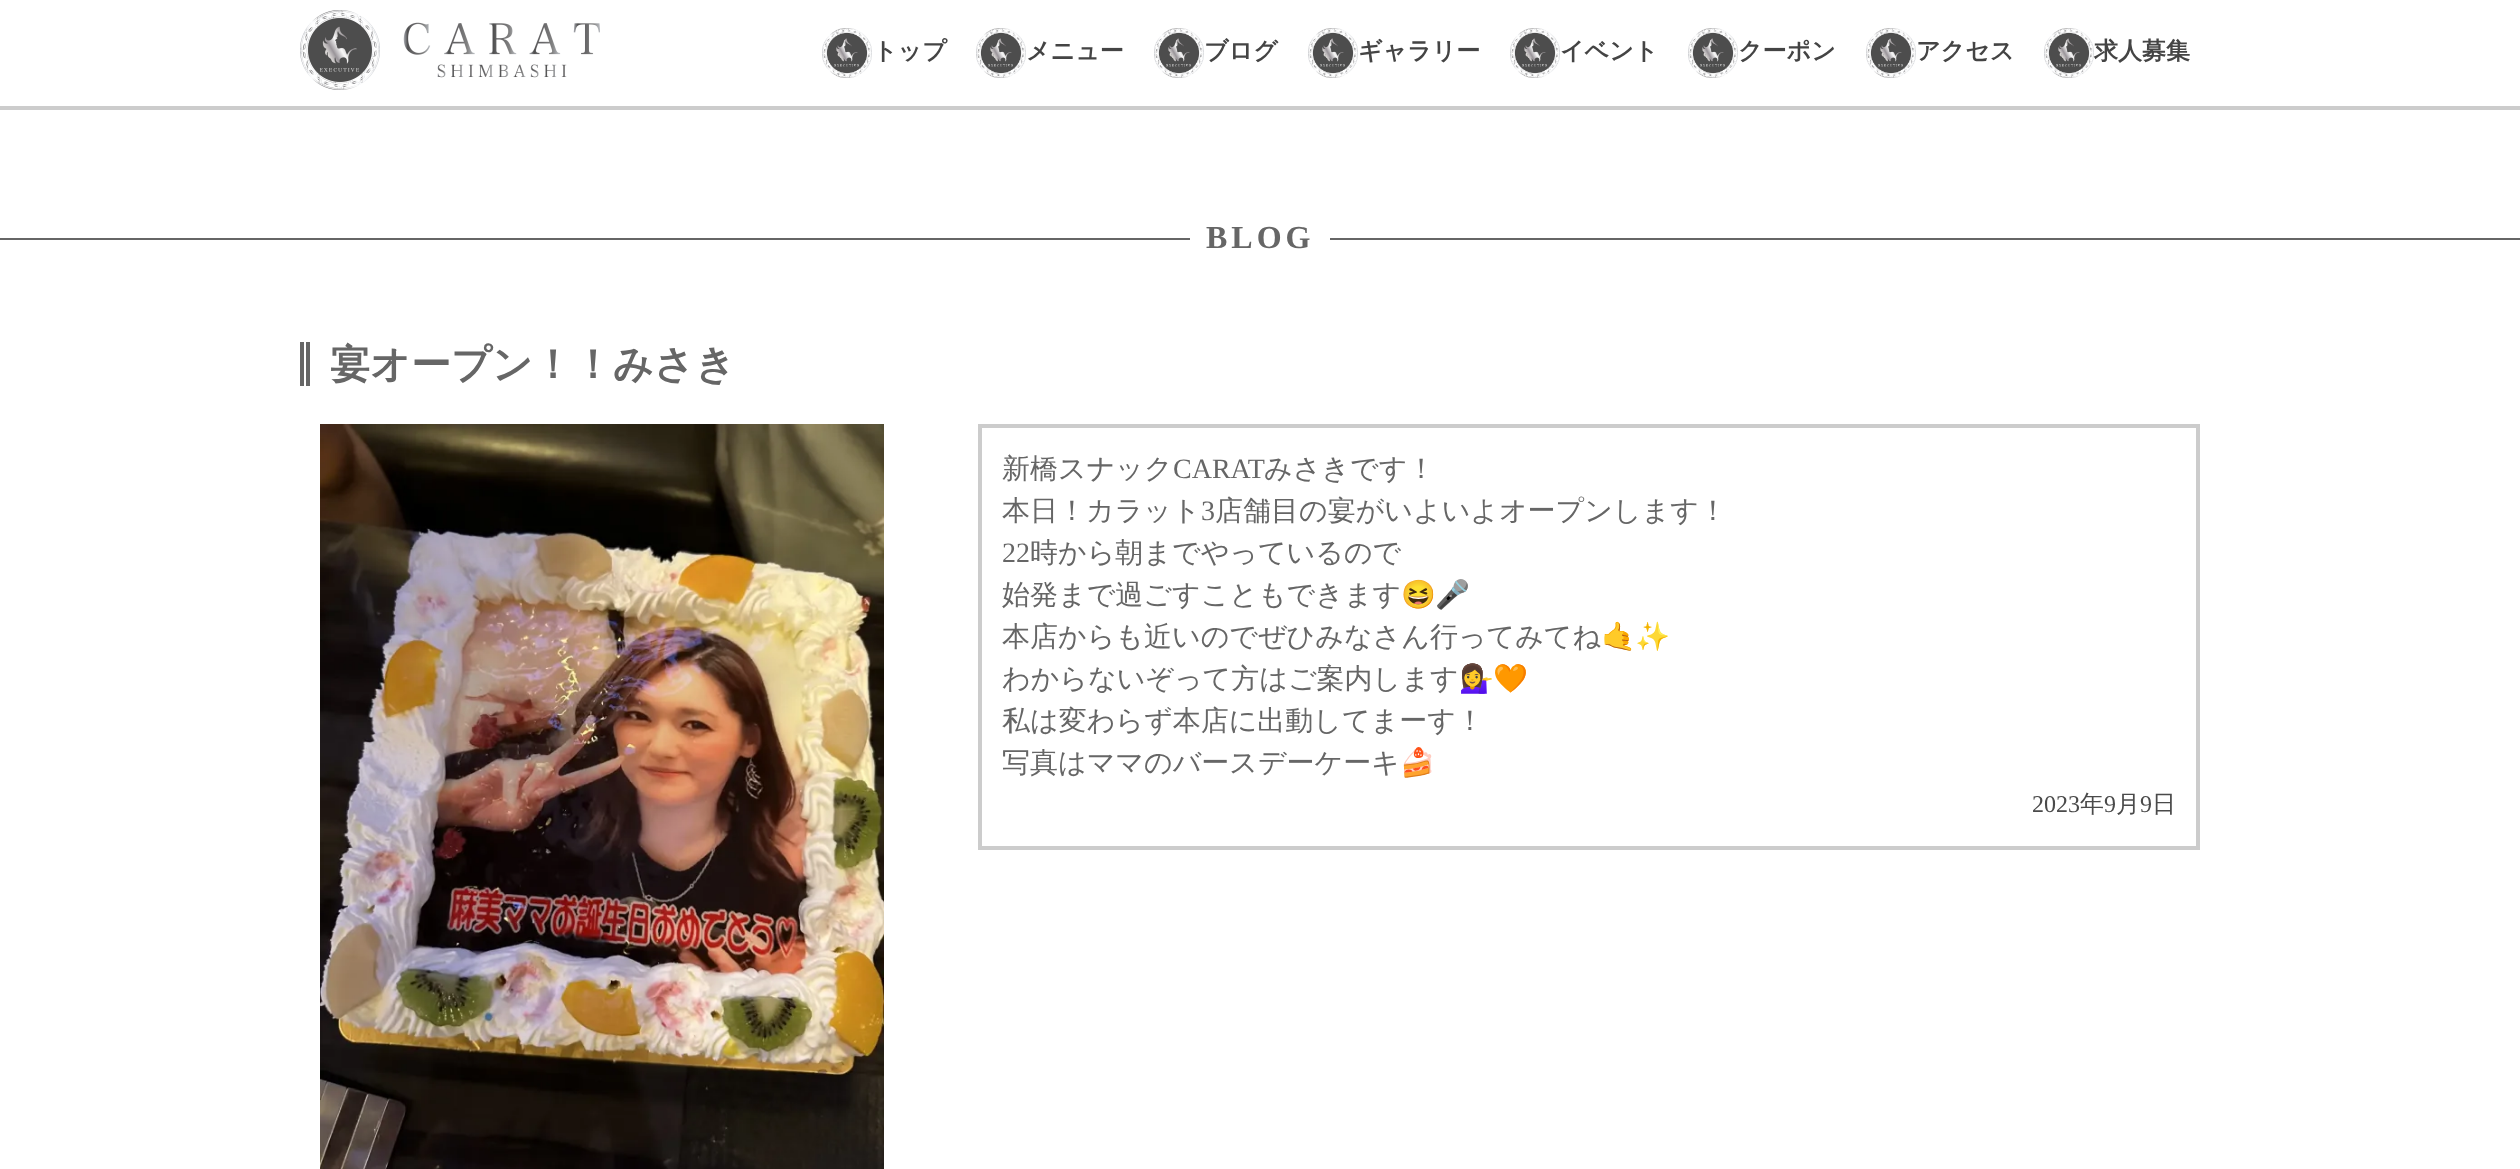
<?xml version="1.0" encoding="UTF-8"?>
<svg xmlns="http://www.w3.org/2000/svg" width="2520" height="1169">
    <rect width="100%" height="100%" fill="#FFFFFF"/>
    <rect x="0" y="106" width="2520" height="4" fill="#CCCCCC"/>
    <image x="300" y="10" width="300" height="80" href="img_01.png"/>
    <image x="822" y="28" width="50" height="50" href="img_02.png"/>
    <text x="873" y="59" font-family="WenQuanYi Zen Hei" font-size="24" font-weight="700" fill="#444444">トップ</text>
    <image x="976" y="28" width="50" height="50" href="img_03.png"/>
    <text x="1026" y="59" font-family="WenQuanYi Zen Hei" font-size="24" font-weight="700" fill="#444444">メニュー</text>
    <image x="1154" y="28" width="50" height="50" href="img_04.png"/>
    <text x="1204" y="59" font-family="WenQuanYi Zen Hei" font-size="24" font-weight="700" fill="#444444">ブログ</text>
    <image x="1308" y="28" width="50" height="50" href="img_04.png"/>
    <text x="1358" y="59" font-family="WenQuanYi Zen Hei" font-size="24" font-weight="700" fill="#444444">ギャラリー</text>
    <image x="1510" y="28" width="50" height="50" href="img_04.png"/>
    <text x="1560" y="59" font-family="WenQuanYi Zen Hei" font-size="24" font-weight="700" fill="#444444">イベント</text>
    <image x="1688" y="28" width="50" height="50" href="img_04.png"/>
    <text x="1738" y="59" font-family="WenQuanYi Zen Hei" font-size="24" font-weight="700" fill="#444444">クーポン</text>
    <image x="1866" y="28" width="50" height="50" href="img_04.png"/>
    <text x="1916" y="59" font-family="WenQuanYi Zen Hei" font-size="24" font-weight="700" fill="#444444">アクセス</text>
    <image x="2044" y="28" width="50" height="50" href="img_03.png"/>
    <text x="2094" y="59" font-family="WenQuanYi Zen Hei" font-size="24" font-weight="700" fill="#444444">求人募集</text>
    <rect x="0" y="238" width="1190" height="2" fill="#666666"/>
    <text x="1206" y="248" font-family="Liberation Serif" font-size="32" font-weight="700" letter-spacing="4" fill="#666666">BLOG</text>
    <rect x="1330" y="238" width="1190" height="2" fill="#666666"/>
    <rect x="300" y="342" width="4" height="44" fill="#666666"/>
    <rect x="306" y="342" width="4" height="44" fill="#666666"/>
    <text x="330" y="378" font-family="WenQuanYi Zen Hei" font-size="40" font-weight="700" fill="#666666">宴オープン！！みさき</text>
    <image x="320" y="424" width="564" height="745" href="img_05.png"/>
    <rect x="980" y="426" width="1218" height="422" fill="none" stroke="#CCCCCC" stroke-width="4"/>
    <text x="1002" y="478" font-family="WenQuanYi Zen Hei" font-size="28" font-weight="500" fill="#666666">新橋スナック</text>
    <text x="1173" y="478" font-family="Liberation Serif" font-size="28" fill="#666666">CARAT</text>
    <text x="1264" y="478" font-family="WenQuanYi Zen Hei" font-size="28" font-weight="500" fill="#666666">みさきです！</text>
    <text x="1002" y="520" font-family="WenQuanYi Zen Hei" font-size="28" font-weight="500" fill="#666666">本日！カラット</text>
    <text x="1201" y="520" font-family="Liberation Serif" font-size="28" fill="#666666">3</text>
    <text x="1215" y="520" font-family="WenQuanYi Zen Hei" font-size="28" font-weight="500" fill="#666666">店舗目の宴がいよいよオープンします！</text>
    <text x="1002" y="562" font-family="Liberation Serif" font-size="28" fill="#666666">22</text>
    <text x="1030" y="562" font-family="WenQuanYi Zen Hei" font-size="28" font-weight="500" fill="#666666">時から朝までやっているので</text>
    <text x="1002" y="604" font-family="WenQuanYi Zen Hei" font-size="28" font-weight="500" fill="#666666">始発まで過ごすこともできます</text>
    <text x="1401" y="604" font-family="Noto Color Emoji" font-size="28" fill="#666666">😆🎤</text>
    <text x="1002" y="646" font-family="WenQuanYi Zen Hei" font-size="28" font-weight="500" fill="#666666">本店からも近いのでぜひみなさん行ってみてね</text>
    <text x="1601" y="646" font-family="Noto Color Emoji" font-size="28" fill="#666666">🤙✨</text>
    <text x="1002" y="688" font-family="WenQuanYi Zen Hei" font-size="28" font-weight="500" fill="#666666">わからないぞって方はご案内します</text>
    <text x="1459" y="688" font-family="Noto Color Emoji" font-size="28" fill="#666666">💁‍♀️🧡</text>
    <text font-family="WenQuanYi Zen Hei" font-size="28" font-weight="500" fill="#666666">
        <tspan x="1002" y="730">私は変わらず本店に出動してまーす！</tspan>
        <tspan x="1002" y="772">写真はママのバースデーケーキ</tspan>
    </text>
    <text x="1400" y="772" font-family="Noto Color Emoji" font-size="28" fill="#666666">🍰</text>
    <text x="2032" y="812" font-family="Liberation Serif" font-size="24" fill="#4A4A4A">2023</text>
    <text x="2080" y="812" font-family="WenQuanYi Zen Hei" font-size="24" font-weight="500" fill="#4A4A4A">年</text>
    <text x="2104" y="812" font-family="Liberation Serif" font-size="24" fill="#4A4A4A">9</text>
    <text x="2116" y="812" font-family="WenQuanYi Zen Hei" font-size="24" font-weight="500" fill="#4A4A4A">月</text>
    <text x="2140" y="812" font-family="Liberation Serif" font-size="24" fill="#4A4A4A">9</text>
    <text x="2152" y="812" font-family="WenQuanYi Zen Hei" font-size="24" font-weight="500" fill="#4A4A4A">日</text>
</svg>
